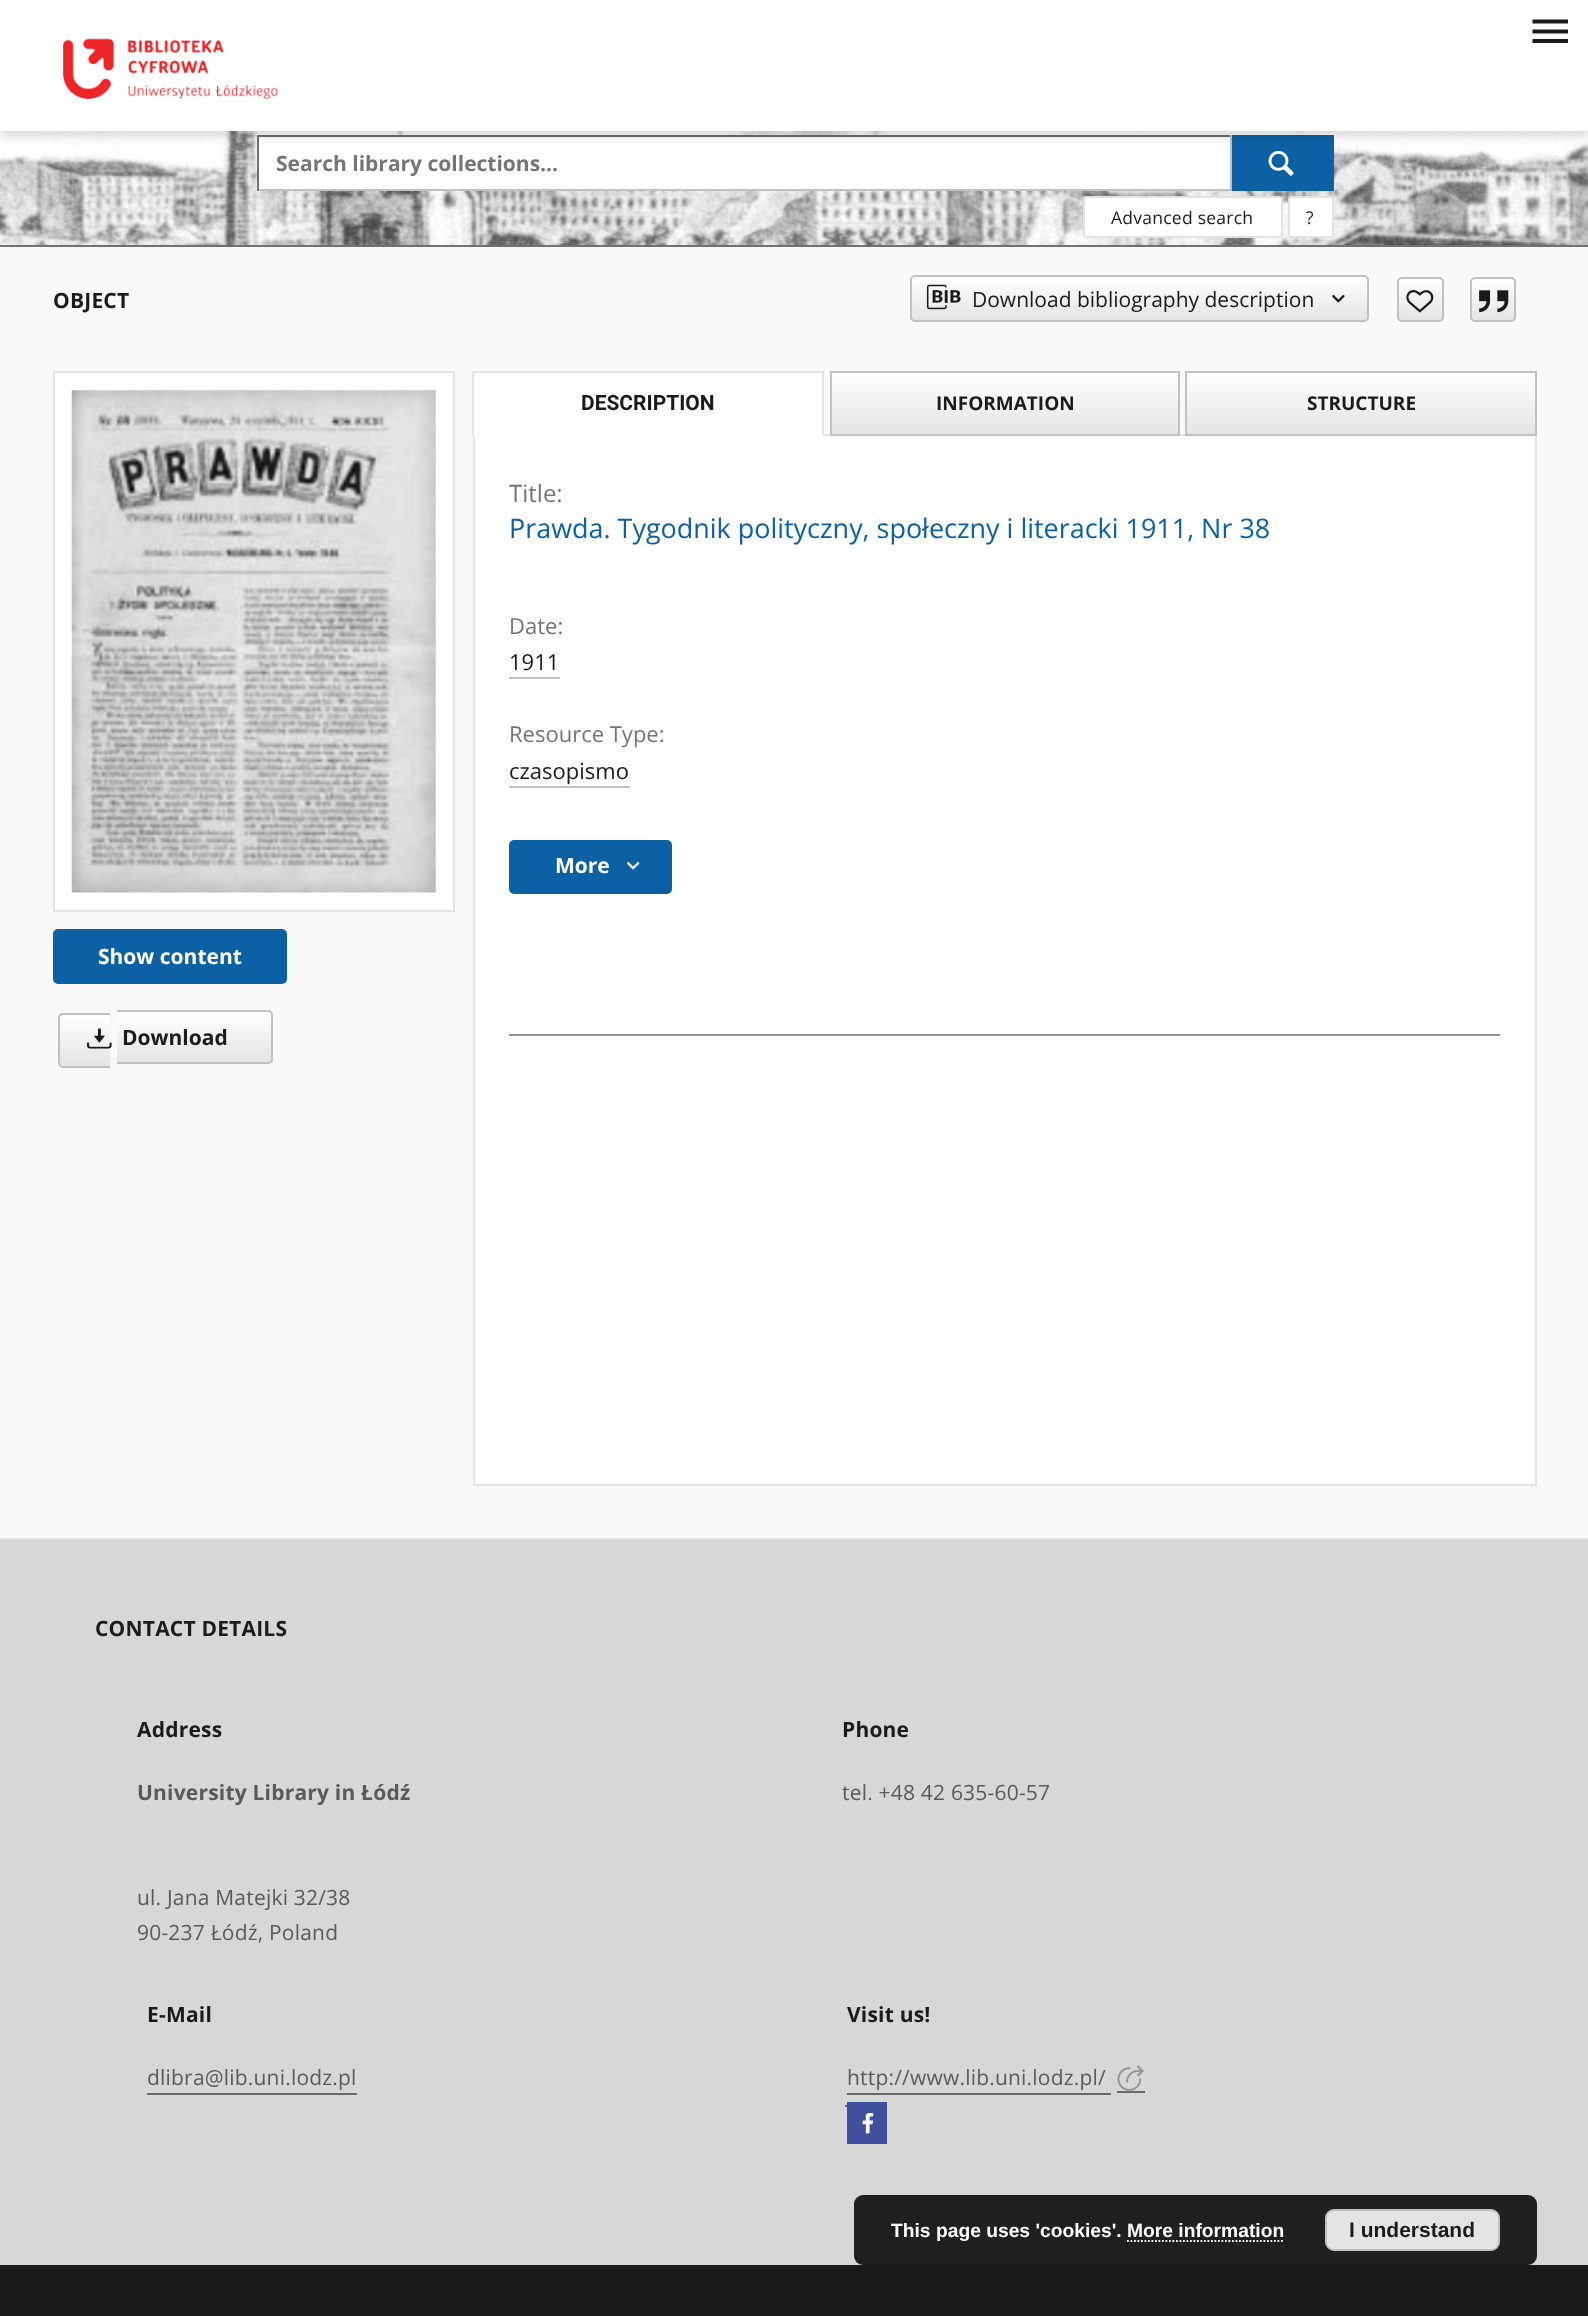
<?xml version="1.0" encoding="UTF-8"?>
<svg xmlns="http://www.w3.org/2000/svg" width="1588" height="2316">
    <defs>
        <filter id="blur1" x="-50%" y="-200%" width="200%" height="500%"><feGaussianBlur stdDeviation="9"/></filter>
        <filter id="blur2" x="-50%" y="-200%" width="200%" height="500%"><feGaussianBlur stdDeviation="4.5"/></filter>
        <filter id="blur3" x="-50%" y="-200%" width="200%" height="500%"><feGaussianBlur stdDeviation="3.5"/></filter>
        <clipPath id="clip1"><rect x="277" y="149" width="936" height="30"/></clipPath>
        <clipPath id="clip2"><rect x="910" y="275" width="459" height="47" rx="5"/></clipPath>
        <linearGradient id="g1" gradientUnits="userSpaceOnUse" x1="1139" y1="276" x2="1139" y2="320"><stop offset="0" stop-color="#FFFFFF"/><stop offset="1" stop-color="#E4E4E4"/></linearGradient>
        <clipPath id="clip3"><rect x="1397" y="277" width="47" height="45" rx="5"/></clipPath>
        <linearGradient id="g2" gradientUnits="userSpaceOnUse" x1="1420" y1="278" x2="1420" y2="320"><stop offset="0" stop-color="#FFFFFF"/><stop offset="1" stop-color="#E4E4E4"/></linearGradient>
        <clipPath id="clip4"><rect x="1470" y="277" width="46" height="45" rx="5"/></clipPath>
        <linearGradient id="g3" gradientUnits="userSpaceOnUse" x1="1493" y1="278" x2="1493" y2="320"><stop offset="0" stop-color="#FFFFFF"/><stop offset="1" stop-color="#E4E4E4"/></linearGradient>
        <linearGradient id="g4" gradientUnits="userSpaceOnUse" x1="1005" y1="373" x2="1005" y2="434"><stop offset="0" stop-color="#FFFFFF"/><stop offset="1" stop-color="#E4E4E4"/></linearGradient>
        <linearGradient id="g5" gradientUnits="userSpaceOnUse" x1="1361" y1="373" x2="1361" y2="434"><stop offset="0" stop-color="#FFFFFF"/><stop offset="1" stop-color="#E4E4E4"/></linearGradient>
        <clipPath id="clip5"><path d="M 63 1013 H 110 V 1068 H 63 C 60 1068 58 1066 58 1063 V 1018 C 58 1015 60 1013 63 1013 Z"/></clipPath>
        <linearGradient id="g6" gradientUnits="userSpaceOnUse" x1="85" y1="964" x2="85" y2="1015"><stop offset="0" stop-color="#FFFFFF"/><stop offset="1" stop-color="#E4E4E4"/></linearGradient>
        <linearGradient id="g7" gradientUnits="userSpaceOnUse" x1="85" y1="1015" x2="85" y2="1066"><stop offset="0" stop-color="#FFFFFF"/><stop offset="1" stop-color="#E4E4E4"/></linearGradient>
        <linearGradient id="g8" gradientUnits="userSpaceOnUse" x1="85" y1="1066" x2="85" y2="1117"><stop offset="0" stop-color="#FFFFFF"/><stop offset="1" stop-color="#E4E4E4"/></linearGradient>
        <clipPath id="clip6"><path d="M 117 1010 H 268 C 271 1010 273 1012 273 1015 V 1059 C 273 1062 271 1064 268 1064 H 117 Z"/></clipPath>
        <linearGradient id="g9" gradientUnits="userSpaceOnUse" x1="194" y1="1012" x2="194" y2="1062"><stop offset="0" stop-color="#FFFFFF"/><stop offset="1" stop-color="#E4E4E4"/></linearGradient>
    </defs>
    <rect width="100%" height="100%" fill="#F9F9F9"/>
    <image x="0" y="131" width="1588" height="114" href="img_02.png"/>
    <rect x="259" y="137" width="971" height="52" fill="#FFFFFF"/>
    <rect x="257" y="135" width="975" height="2" fill="#707070"/>
    <rect x="1230" y="135" width="2" height="56" fill="#C1C1C1"/>
    <rect x="257" y="189" width="975" height="2" fill="#C1C1C1"/>
    <rect x="257" y="135" width="2" height="56" fill="#707070"/>
    <rect x="1232" y="135" width="102" height="56" fill="#0C61A5"/>
    <image x="1268" y="150" width="26" height="26" href="img_03.png"/>
    <rect x="0" y="2" width="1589" height="131" fill="#000000" fill-opacity="0.08" filter="url(#blur1)"/>
    <rect x="0" y="7" width="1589" height="131" fill="#000000" fill-opacity="0.06" filter="url(#blur2)"/>
    <rect x="2" y="5" width="1585" height="128" fill="#000000" fill-opacity="0.06" filter="url(#blur3)"/>
    <rect x="0" y="0" width="1588" height="131" fill="#FFFFFF"/>
    <path d="M 1568 23.5 H 1532.5 V 19.5 H 1568 Z M 1568 29.5 H 1532.5 V 33.5 H 1568 Z M 1568 39 H 1532.5 V 43 H 1568 Z" fill="#1A1B1C"/>
    <image x="63" y="38" width="215" height="61" href="img_01.png"/>
    <rect x="0" y="245" width="1588" height="2" fill="#707070"/>
    <g clip-path="url(#clip1)">
        <text x="276" y="171" font-family="Open Sans" font-size="21" font-weight="700" fill="#757575">Search library collections...</text>
    </g>
    <rect x="1084" y="197" width="198" height="40" rx="3" fill="#FFFFFF" stroke="#E2E2E2" stroke-width="2"/>
    <text x="1111" y="224" font-family="Open Sans" font-size="17.5" letter-spacing="0.25" fill="#1A1B1C">Advanced search</text>
    <rect x="1289" y="197" width="44" height="40" rx="3" fill="#FFFFFF" stroke="#E2E2E2" stroke-width="2"/>
    <text x="1306" y="224" font-family="Open Sans" font-size="17.5" fill="#1A1B1C">?</text>
    <text x="53" y="308" font-family="Open Sans" font-size="21" font-weight="700" letter-spacing="0.2" fill="#1A1B1C">OBJECT</text>
    <g clip-path="url(#clip2)">
        <rect x="910" y="277" width="459" height="43" fill="url(#g1)"/>
    </g>
    <rect x="911" y="276" width="457" height="45" rx="4" fill="none" stroke="#C1C1C1" stroke-width="2"/>
    <image x="926" y="284" width="35" height="26" href="img_04.png"/>
    <text x="972" y="307" font-family="Open Sans" font-size="21" fill="#1A1B1C">Download bibliography description</text>
    <image x="1332" y="295" width="13" height="8" href="img_05.png"/>
    <g clip-path="url(#clip3)">
        <rect x="1397" y="278" width="47" height="42" fill="url(#g2)"/>
    </g>
    <rect x="1398" y="278" width="45" height="43" rx="4" fill="none" stroke="#C1C1C1" stroke-width="2"/>
    <image x="1406" y="290" width="28" height="23" href="img_06.png"/>
    <g clip-path="url(#clip4)">
        <rect x="1470" y="278" width="46" height="42" fill="url(#g3)"/>
    </g>
    <rect x="1471" y="278" width="44" height="43" rx="4" fill="none" stroke="#C1C1C1" stroke-width="2"/>
    <image x="1479" y="290" width="30" height="23" href="img_07.png"/>
    <rect x="824" y="434" width="361" height="2" fill="#E4E4E4"/>
    <rect x="473" y="373" width="351" height="63" fill="#FFFFFF"/>
    <rect x="473" y="371" width="351" height="2" fill="#E4E4E4"/>
    <path d="M 824 371 V 436 L 822 434 V 373 Z" fill="#E4E4E4"/>
    <path d="M 472 436 V 371 L 474 373 V 434 Z" fill="#E4E4E4"/>
    <text x="581" y="410" font-family="Roboto" font-size="21" font-weight="700" fill="#1A1B1C">DESCRIPTION</text>
    <rect x="832" y="373" width="346" height="61" fill="url(#g4)"/>
    <rect x="831" y="372" width="348" height="63" fill="none" stroke="#C1C1C1" stroke-width="2"/>
    <text x="936" y="410" font-family="Open Sans" font-size="19" font-weight="700" fill="#1A1B1C">INFORMATION</text>
    <rect x="1187" y="373" width="348" height="61" fill="url(#g5)"/>
    <rect x="1186" y="372" width="350" height="63" fill="none" stroke="#C1C1C1" stroke-width="2"/>
    <text x="1307" y="410" font-family="Open Sans" font-size="19" font-weight="700" fill="#1A1B1C">STRUCTURE</text>
    <rect x="475" y="436" width="1060" height="1048" fill="#FFFFFF"/>
    <rect x="1535" y="436" width="2" height="1050" fill="#E4E4E4"/>
    <rect x="473" y="1484" width="1064" height="2" fill="#E4E4E4"/>
    <rect x="473" y="436" width="2" height="1050" fill="#E4E4E4"/>
    <text x="509" y="502" font-family="Open Sans" font-size="24" fill="#757575">Title:</text>
    <text x="509" y="538" font-family="Open Sans" font-size="26.95" fill="#0C61A5">Prawda. Tygodnik polityczny, społeczny i literacki 1911, Nr 38</text>
    <text x="509" y="634" font-family="Open Sans" font-size="22" fill="#757575">Date:</text>
    <text x="509" y="670" font-family="Open Sans" font-size="22" fill="#1A1B1C">1911</text>
    <rect x="509" y="677" width="51" height="2" fill="#C1C1C1"/>
    <text x="509" y="742" font-family="Open Sans" font-size="22" fill="#757575">Resource Type:</text>
    <text x="509" y="779" font-family="Open Sans" font-size="22" fill="#1A1B1C">czasopismo</text>
    <rect x="509" y="786" width="121" height="2" fill="#C1C1C1"/>
    <rect x="510" y="841" width="161" height="52" rx="4" fill="#0C61A5" stroke="#0C61A5" stroke-width="2"/>
    <text x="555" y="873" font-family="Open Sans" font-size="21" font-weight="700" fill="#FFFFFF">More</text>
    <image x="627" y="862" width="13" height="8" href="img_08.png"/>
    <rect x="509" y="1034" width="991" height="2" fill="#939393"/>
    <rect x="54" y="372" width="400" height="539" fill="#FFFFFF" stroke="#E4E4E4" stroke-width="2"/>
    <image x="71" y="390" width="365" height="503" href="img_09.png"/>
    <rect x="54" y="930" width="232" height="53" rx="4" fill="#0C61A5" stroke="#0C61A5" stroke-width="2"/>
    <text x="98" y="964" font-family="Open Sans" font-size="21" font-weight="700" fill="#FFFFFF">Show content</text>
    <g clip-path="url(#clip5)">
        <rect x="58" y="1013" width="5" height="2" fill="url(#g6)"/>
        <rect x="58" y="1015" width="52" height="51" fill="url(#g7)"/>
        <rect x="58" y="1066" width="5" height="2" fill="url(#g8)"/>
    </g>
    <path d="M 63 1013 H 110 V 1068 H 63 C 60 1068 58 1065 58 1062 V 1018 C 58 1016 60 1013 63 1013 Z M 63 1015 H 110 V 1066 H 63 C 61 1066 60 1064 60 1062 V 1018 C 60 1017 61 1015 63 1015 Z" fill="#C1C1C1" fill-rule="evenodd"/>
    <g clip-path="url(#clip6)">
        <rect x="117" y="1012" width="156" height="50" fill="url(#g9)"/>
    </g>
    <path d="M 117 1010 H 268 C 271 1010 273 1012 273 1015 V 1059 C 273 1062 271 1064 268 1064 H 117 Z M 117 1012 H 268 C 270 1012 271 1013 271 1015 V 1059 C 271 1061 270 1062 268 1062 H 117 Z" fill="#C1C1C1" fill-rule="evenodd"/>
    <image x="86" y="1028" width="26" height="21" href="img_10.png"/>
    <text x="122" y="1045" font-family="Open Sans" font-size="21" font-weight="700" fill="#1A1B1C">Download</text>
    <rect x="0" y="1540" width="1588" height="725" fill="#D7D7D7"/>
    <rect x="0" y="1538" width="1588" height="2" fill="#E4E4E4"/>
    <text x="95" y="1636" font-family="Open Sans" font-size="21" font-weight="700" letter-spacing="0.2" fill="#1A1B1C">CONTACT DETAILS</text>
    <text x="137" y="1737" font-family="Open Sans" font-size="21" font-weight="700" letter-spacing="0.2" fill="#1A1B1C">Address</text>
    <text x="137" y="1800" font-family="Open Sans" font-size="21" font-weight="700" letter-spacing="0.2" fill="#5A5A5A">University Library in Łódź</text>
    <text font-family="Open Sans" font-size="21" letter-spacing="0.2" fill="#5A5A5A">
        <tspan x="137" y="1905">ul. Jana Matejki 32/38</tspan>
        <tspan x="137" y="1940">90-237 Łódź, Poland</tspan>
    </text>
    <text x="842" y="1737" font-family="Open Sans" font-size="21" font-weight="700" letter-spacing="0.2" fill="#1A1B1C">Phone</text>
    <text x="842" y="1800" font-family="Open Sans" font-size="21" letter-spacing="0.2" fill="#5A5A5A">tel. +48 42 635-60-57</text>
    <text x="147" y="2022" font-family="Open Sans" font-size="21" font-weight="700" letter-spacing="0.2" fill="#1A1B1C">E-Mail</text>
    <text x="147" y="2085" font-family="Open Sans" font-size="21" letter-spacing="0.2" fill="#5A5A5A">dlibra@lib.uni.lodz.pl</text>
    <rect x="147" y="2093" width="210" height="2" fill="#696969"/>
    <text x="847" y="2022" font-family="Open Sans" font-size="21" font-weight="700" letter-spacing="0.2" fill="#1A1B1C">Visit us!</text>
    <text x="847" y="2085" font-family="Open Sans" font-size="21" letter-spacing="0.2" fill="#5A5A5A">http://www.lib.uni.lodz.pl/</text>
    <rect x="847" y="2093" width="264" height="2" fill="#696969"/>
    <rect x="1117" y="2091" width="28" height="2" fill="#696969"/>
    <image x="1117" y="2065" width="27" height="26" href="img_11.png"/>
    <rect x="845" y="2105" width="2" height="2" fill="#696969"/>
    <rect x="847" y="2102" width="40" height="42" fill="#3F4F9C"/>
    <image x="862" y="2113" width="12" height="21" href="img_12.png"/>
    <rect x="854" y="2195" width="683" height="70" rx="9" fill="#202020"/>
    <text x="891" y="2237" font-family="Liberation Sans" font-size="19.25" font-weight="700" fill="#FFFFFF">This page uses 'cookies'. More information</text>
    <rect x="1326" y="2210" width="173" height="40" rx="8" fill="#E4E4E4" stroke="#C1C1C1" stroke-width="2"/>
    <text x="1349" y="2237" font-family="Liberation Sans" font-size="21" font-weight="700" fill="#1A1B1C">I understand</text>
    <path d="M 1127 2241 H 1284.5" fill="none" stroke="#FFFFFF" stroke-width="1.8" stroke-dasharray="1.75 1.75"/>
    <rect x="0" y="2265" width="1588" height="51" fill="#1B1A1A"/>
</svg>
